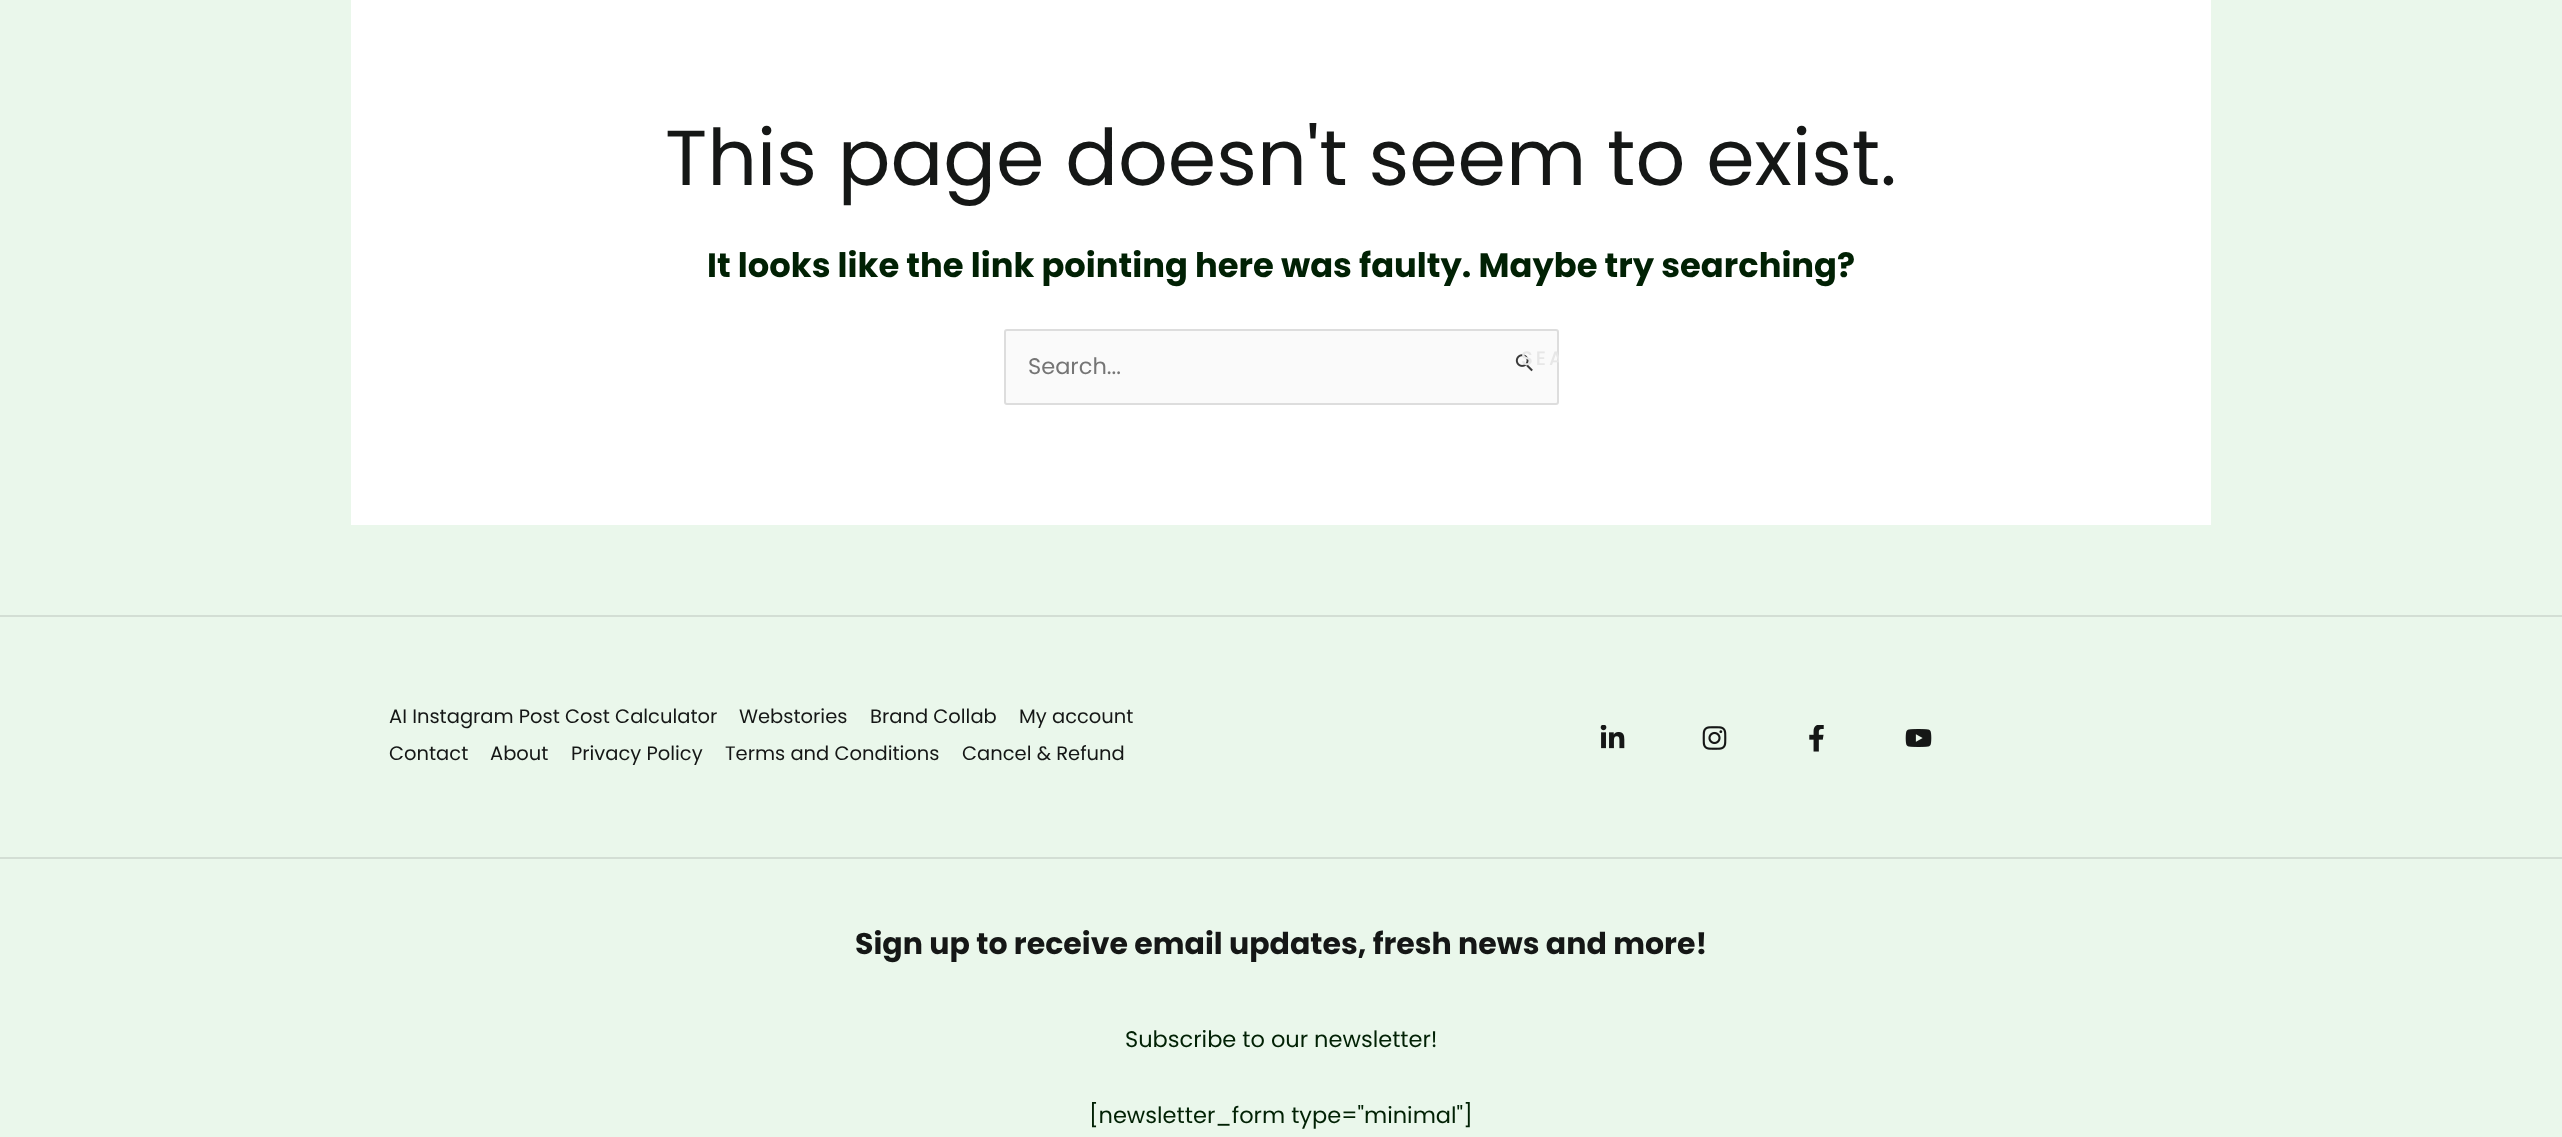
<?xml version="1.0" encoding="UTF-8"?>
<svg xmlns="http://www.w3.org/2000/svg" width="2562" height="1137">
    <defs>
        <clipPath id="clip1"><rect x="1491" y="329" width="68" height="58" rx="3"/></clipPath>
    </defs>
    <rect width="100%" height="100%" fill="#EAF7EB"/>
    <rect x="351" y="0" width="1860" height="525" fill="#FFFFFF"/>
    <text x="665" y="185" font-family="Poppins" font-size="78" fill="#151716">This page doesn't seem to exist.</text>
    <text x="707" y="277" font-family="Poppins" font-size="33.75" font-weight="700" fill="#012104">It looks like the link pointing here was faulty. Maybe try searching?</text>
    <rect x="1005" y="330" width="553" height="74" rx="2" fill="#FAFAFA" stroke="#DDDDDD" stroke-width="2"/>
    <text x="1028" y="374" font-family="Poppins" font-size="22.5" fill="#757575">Search...</text>
    <image x="1515" y="354" width="18" height="18" href="img_01.png"/>
    <g clip-path="url(#clip1)">
        <text x="1521" y="365" font-family="Poppins" font-size="19.5" font-weight="500" letter-spacing="3" fill="#E7E7E7">SEA</text>
    </g>
    <rect x="0" y="615" width="2562" height="2" fill="#D3DED4"/>
    <text x="389" y="723" font-family="Poppins" font-size="19.5" fill="#151716">AI Instagram Post Cost Calculator</text>
    <text x="739" y="723" font-family="Poppins" font-size="19.5" fill="#151716">Webstories</text>
    <text x="870" y="723" font-family="Poppins" font-size="19.5" fill="#151716">Brand Collab</text>
    <text x="1019" y="723" font-family="Poppins" font-size="19.5" fill="#151716">My account</text>
    <text x="389" y="760" font-family="Poppins" font-size="19.5" fill="#151716">Contact</text>
    <text x="490" y="760" font-family="Poppins" font-size="19.5" fill="#151716">About</text>
    <text x="571" y="760" font-family="Poppins" font-size="19.5" fill="#151716">Privacy Policy</text>
    <text x="725" y="760" font-family="Poppins" font-size="19.5" fill="#151716">Terms and Conditions</text>
    <text x="962" y="760" font-family="Poppins" font-size="19.5" fill="#151716">Cancel &amp; Refund</text>
    <image x="1600" y="725" width="25" height="24" href="img_02.png"/>
    <image x="1702" y="726" width="25" height="24" href="img_03.png"/>
    <image x="1809" y="725" width="15" height="27" href="img_04.png"/>
    <image x="1905" y="729" width="27" height="18" href="img_05.png"/>
    <rect x="0" y="857" width="2562" height="2" fill="#D3DED4"/>
    <text x="855" y="954" font-family="Poppins" font-size="30" font-weight="700" fill="#151716">Sign up to receive email updates, fresh news and more!</text>
    <text x="1125" y="1047" font-family="Poppins" font-size="22.5" fill="#012104">Subscribe to our newsletter!</text>
    <text x="1089" y="1123" font-family="Poppins" font-size="22.5" fill="#012104">[newsletter_form type="minimal"]</text>
</svg>
